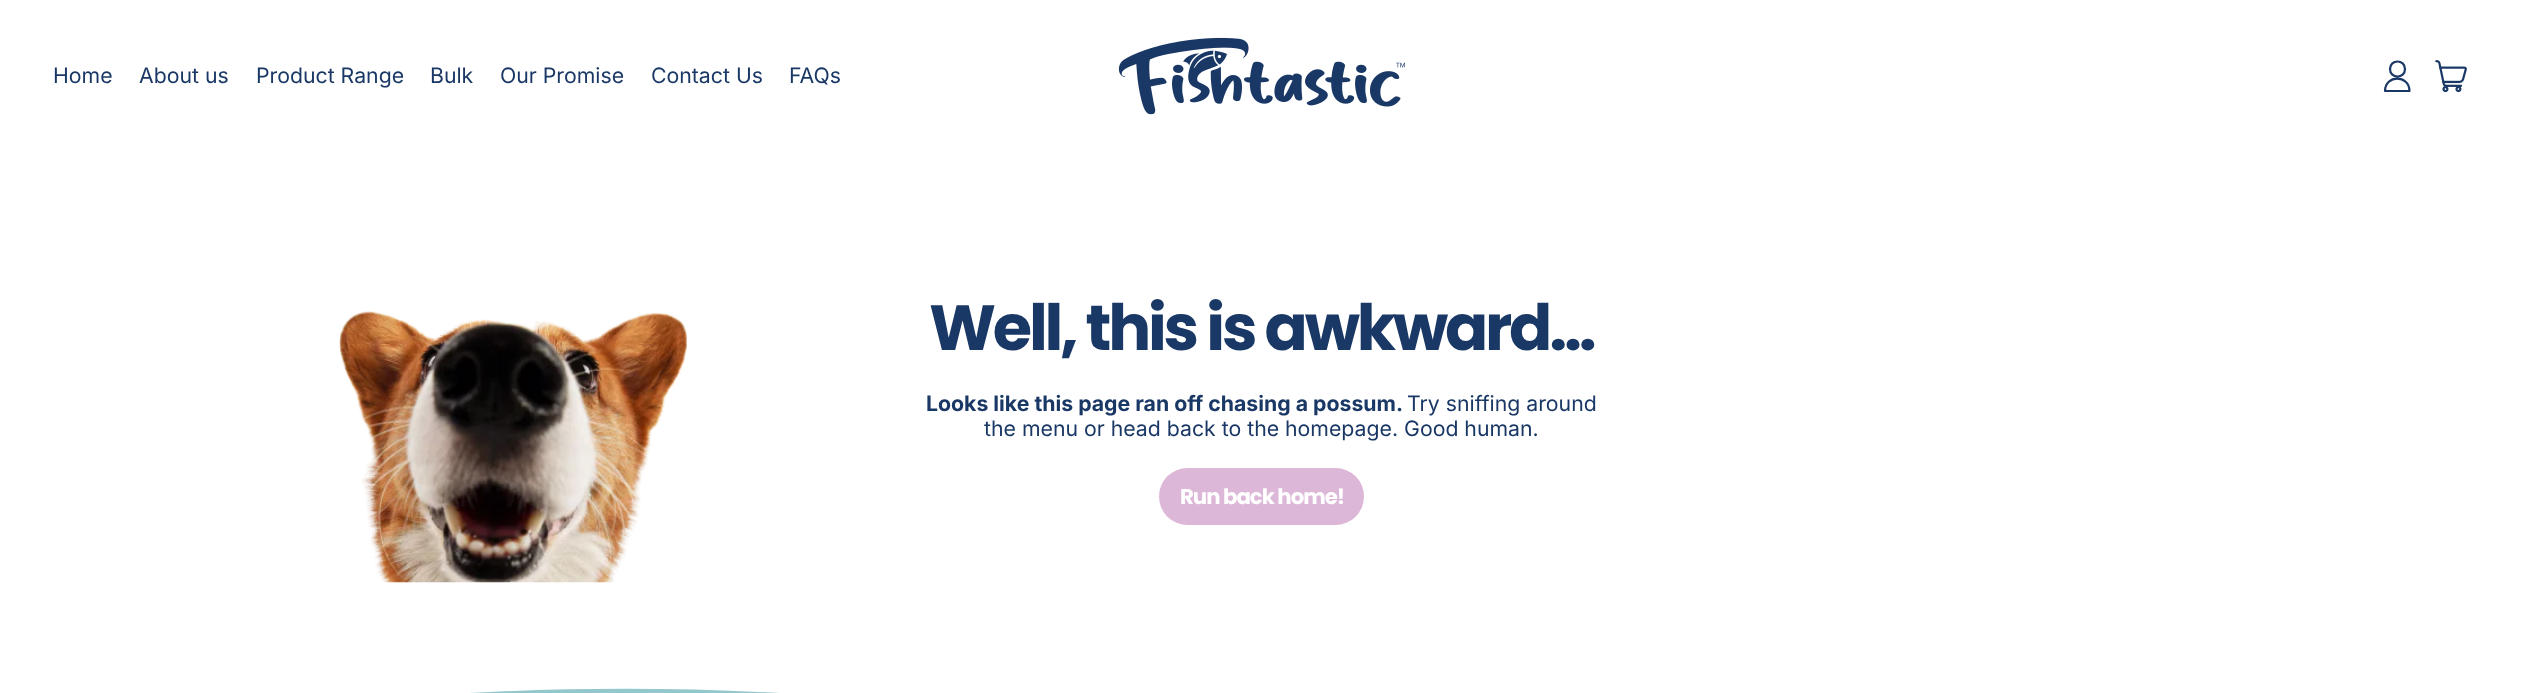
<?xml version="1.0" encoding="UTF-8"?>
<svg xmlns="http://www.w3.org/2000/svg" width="2522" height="693">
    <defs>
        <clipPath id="clip1"><rect x="0" y="668" width="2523" height="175"/></clipPath>
    </defs>
    <rect width="100%" height="100%" fill="#FFFFFF"/>
    <text x="53" y="83" font-family="Inter" font-size="21.25" fill="#1A3865">Home</text>
    <text x="139" y="83" font-family="Inter" font-size="21.25" fill="#1A3865">About us</text>
    <text x="256" y="83" font-family="Inter" font-size="21.25" fill="#1A3865">Product Range</text>
    <text x="430" y="83" font-family="Inter" font-size="21.25" fill="#1A3865">Bulk</text>
    <text x="500" y="83" font-family="Inter" font-size="21.25" fill="#1A3865">Our Promise</text>
    <text x="651" y="83" font-family="Inter" font-size="21.25" fill="#1A3865">Contact Us</text>
    <text x="789" y="83" font-family="Inter" font-size="21.25" fill="#1A3865">FAQs</text>
    <image x="1118" y="37" width="287" height="78" href="img_01.png"/>
    <path d="M 2390 69 C 2390 79 2405 79 2405 69 C 2405 59 2390 59 2390 69 Z M 2385 91 C 2385 74.5 2409.5 74.5 2409.5 91 Z" fill="none" stroke="#1A3865" stroke-width="2.2" stroke-linecap="round" stroke-linejoin="round"/>
    <image x="2435" y="60" width="32" height="33" href="img_02.png"/>
    <image x="339" y="311" width="348" height="272" href="img_03.png"/>
    <text x="929" y="350" font-family="Poppins" font-size="63.75" font-weight="700" letter-spacing="-3.2" fill="#1A3865">Well, this is awkward...</text>
    <text x="926" y="411" font-family="Inter" font-size="21.25" font-weight="700" fill="#1A3865">Looks like this page ran off chasing a possum.</text>
    <text x="1407" y="411" font-family="Inter" font-size="21.25" fill="#1A3865">Try sniffing around</text>
    <text x="984" y="436" font-family="Inter" font-size="21.25" fill="#1A3865">the menu or head back to the homepage. Good human.</text>
    <rect x="1159" y="468" width="205" height="57" rx="28.5" fill="#DDB7D7"/>
    <text x="1180" y="504" font-family="Poppins" font-size="21.25" font-weight="700" letter-spacing="-1" fill="#FFFFFF">Run back home!</text>
    <rect x="470" y="688" width="310" height="5" fill="#92C8CC"/>
    <g clip-path="url(#clip1)">
        <path d="M 1261 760 C 837 665 412 665 -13 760 V 666 H 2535 V 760 C 2110 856 1686 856 1261 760 Z" fill="#FFFFFF"/>
    </g>
</svg>
